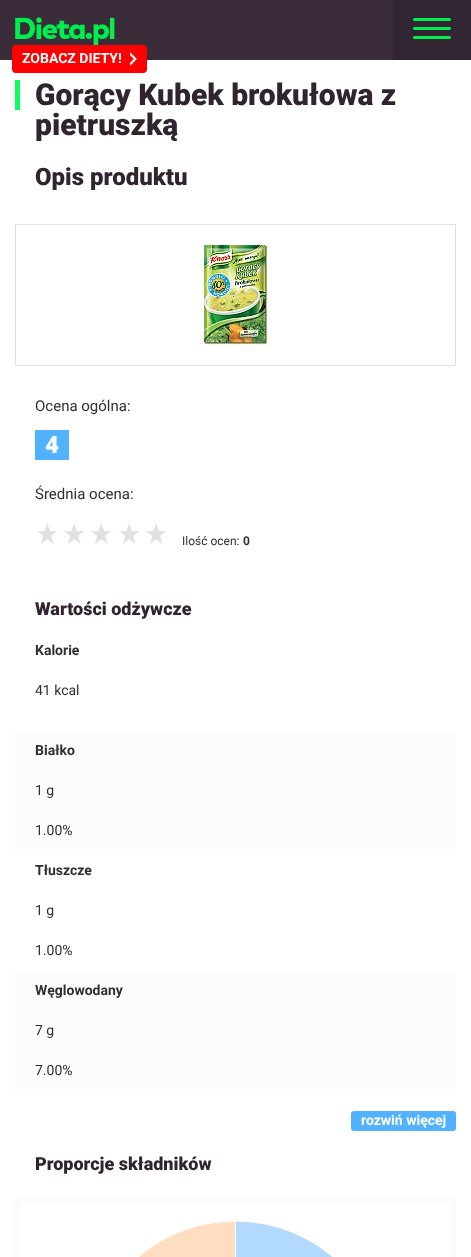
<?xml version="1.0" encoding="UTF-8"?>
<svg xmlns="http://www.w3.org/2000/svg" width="471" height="1257">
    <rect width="100%" height="100%" fill="#FFFFFF"/>
    <rect x="0" y="0" width="393" height="60" fill="#3A2C39"/>
    <image x="15" y="17" width="100" height="28" href="img_01.png"/>
    <rect x="393" y="0" width="78" height="60" fill="#312531"/>
    <image x="413" y="18" width="38" height="21" href="img_02.png"/>
    <rect x="12" y="45" width="135" height="28" rx="4" fill="#FF0000"/>
    <text x="22" y="63" font-family="Roboto" font-size="14" font-weight="700" fill="#FFFFFF">ZOBACZ DIETY!</text>
    <image x="130" y="52" width="7" height="14" href="img_03.png"/>
    <rect x="15" y="80" width="5" height="30" fill="#09FF60"/>
    <text font-family="Roboto" font-size="30" font-weight="900" fill="#30252F">
        <tspan x="35" y="105">Gorący Kubek brokułowa z</tspan>
        <tspan x="35" y="135">pietruszką</tspan>
    </text>
    <text x="35" y="185" font-family="Roboto" font-size="24" font-weight="900" fill="#30252F">Opis produktu</text>
    <rect x="15.5" y="224.5" width="440" height="141" fill="none" stroke="#E0E0E0"/>
    <image x="204" y="245" width="64" height="100" href="img_04.png"/>
    <text x="35" y="411" font-family="Roboto" font-size="15" fill="#303030">Ocena ogólna:</text>
    <rect x="35" y="430" width="34" height="30" fill="#52B2FF"/>
    <text x="45" y="453" font-family="Roboto" font-size="24" font-weight="900" fill="#FFFFFF">4</text>
    <text x="35" y="499" font-family="Roboto" font-size="15" fill="#303030">Średnia ocena:</text>
    <image x="37" y="523" width="20" height="21" href="img_05.png"/>
    <image x="64" y="523" width="20" height="21" href="img_05.png"/>
    <image x="91" y="523" width="20" height="21" href="img_05.png"/>
    <image x="119" y="523" width="20" height="21" href="img_05.png"/>
    <image x="146" y="523" width="20" height="21" href="img_05.png"/>
    <text x="182" y="545" font-family="Roboto" font-size="12" fill="#303030">Ilość ocen:</text>
    <text x="243" y="545" font-family="Roboto" font-size="12" font-weight="700" fill="#303030">0</text>
    <text x="35" y="615" font-family="Roboto" font-size="18" font-weight="900" fill="#30252F">Wartości odżywcze</text>
    <text x="35" y="655" font-family="Roboto" font-size="14" font-weight="700" fill="#303030">Kalorie</text>
    <text x="35" y="695" font-family="Roboto" font-size="14" fill="#303030">41 kcal</text>
    <rect x="15" y="731" width="441" height="120" fill="#FCFCFC"/>
    <text x="35" y="755" font-family="Roboto" font-size="14" font-weight="700" fill="#303030">Białko</text>
    <text x="35" y="795" font-family="Roboto" font-size="14" fill="#303030">1 g</text>
    <text x="35" y="835" font-family="Roboto" font-size="14" fill="#303030">1.00%</text>
    <text x="35" y="875" font-family="Roboto" font-size="14" font-weight="700" fill="#303030">Tłuszcze</text>
    <text x="35" y="915" font-family="Roboto" font-size="14" fill="#303030">1 g</text>
    <text x="35" y="955" font-family="Roboto" font-size="14" fill="#303030">1.00%</text>
    <rect x="15" y="971" width="441" height="120" fill="#FCFCFC"/>
    <text x="35" y="995" font-family="Roboto" font-size="14" font-weight="700" fill="#303030">Węglowodany</text>
    <text x="35" y="1035" font-family="Roboto" font-size="14" fill="#303030">7 g</text>
    <text x="35" y="1075" font-family="Roboto" font-size="14" fill="#303030">7.00%</text>
    <rect x="351" y="1111" width="105" height="20" rx="3" fill="#52B2FF"/>
    <text x="361" y="1125" font-family="Roboto" font-size="14" font-weight="700" fill="#FFFFFF">rozwiń więcej</text>
    <text x="35" y="1170" font-family="Roboto" font-size="18" font-weight="900" fill="#30252F">Proporcje składników</text>
    <rect x="17" y="1199" width="437" height="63" rx="1" fill="none" stroke="#FAFAFA" stroke-width="4"/>
    <image x="139" y="1221" width="194" height="36" href="img_06.png"/>
</svg>
